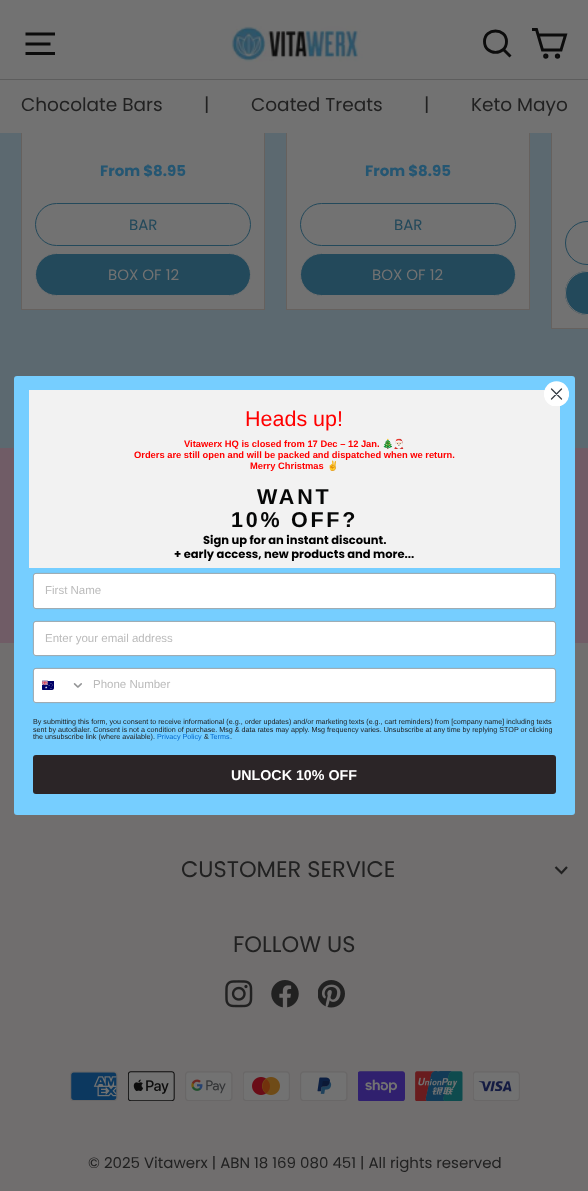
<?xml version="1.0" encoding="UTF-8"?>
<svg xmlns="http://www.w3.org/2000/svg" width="588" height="1191">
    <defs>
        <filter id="blur1" x="-50%" y="-200%" width="200%" height="500%"><feGaussianBlur stdDeviation="0.5"/></filter>
        <clipPath id="clip1"><rect x="544" y="381" width="25" height="25"/></clipPath>
    </defs>
    <rect width="100%" height="100%" fill="#5C6970"/>
    <rect x="22" y="133" width="242" height="176" fill="#727272"/>
    <rect x="21.5" y="-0.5" width="243" height="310" fill="none" stroke="#66615E"/>
    <rect x="287" y="133" width="242" height="176" fill="#727272"/>
    <rect x="286.5" y="-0.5" width="243" height="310" fill="none" stroke="#66615E"/>
    <rect x="552" y="133" width="36" height="195" fill="#727272"/>
    <rect x="551.5" y="-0.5" width="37" height="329" fill="none" stroke="#66615E"/>
    <rect x="0" y="0" width="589" height="133" fill="#0C0C0C" fill-opacity="0.2" filter="url(#blur1)"/>
    <rect x="0" y="0" width="588" height="133" fill="#727272"/>
    <path d="M 25.5 34 H 55 M 25.5 44 H 50.5 M 25.5 53.5 H 55" fill="none" stroke="#0C0C0C" stroke-width="2.9"/>
    <image x="231" y="26" width="132" height="36" href="img_01.png"/>
    <path d="M 506.5 41.5 C 506.5 56 484.5 56 484.5 41.5 C 484.5 27.5 506.5 27.5 506.5 41.5 Z M 510.5 56.5 L 503.5 49.5" fill="none" stroke="#0C0C0C" stroke-width="2.9"/>
    <path d="M 538 35 H 565.5 L 561 50 H 542.5 L 536.5 29.5 H 532" fill="none" stroke="#0C0C0C" stroke-width="2.9"/>
    <circle cx="545.8" cy="56.1" r="1.2" fill="none" stroke="#0C0C0C" stroke-width="2.9"/>
    <circle cx="557.5" cy="56.1" r="1.2" fill="none" stroke="#0C0C0C" stroke-width="2.9"/>
    <rect x="0" y="79" width="588" height="1" fill="#5D5D5D"/>
    <text x="21" y="111" font-family="Poppins" font-size="18.5" fill="#212121">Chocolate Bars</text>
    <text x="204" y="111" font-family="Poppins" font-size="18.5" fill="#212121">|</text>
    <text x="251" y="111" font-family="Poppins" font-size="18.5" fill="#212121">Coated Treats</text>
    <text x="424" y="111" font-family="Poppins" font-size="18.5" fill="#212121">|</text>
    <text x="471" y="111" font-family="Poppins" font-size="18.5" fill="#212121">Keto Mayo</text>
    <text x="100" y="176" font-family="Poppins" font-size="15" font-weight="700" fill="#245672">From $8.95</text>
    <rect x="35.5" y="203.5" width="215" height="42" rx="21" fill="none" stroke="#23495B"/>
    <text x="129" y="230" font-family="Poppins" font-size="15" fill="#23495B">BAR</text>
    <rect x="35.5" y="253.5" width="215" height="42" rx="21" fill="#23495B" stroke="#727272"/>
    <text x="108" y="280" font-family="Poppins" font-size="15" fill="#727272">BOX OF 12</text>
    <text x="365" y="176" font-family="Poppins" font-size="15" font-weight="700" fill="#245672">From $8.95</text>
    <rect x="300.5" y="203.5" width="215" height="42" rx="21" fill="none" stroke="#23495B"/>
    <text x="394" y="230" font-family="Poppins" font-size="15" fill="#23495B">BAR</text>
    <rect x="300.5" y="253.5" width="215" height="42" rx="21" fill="#23495B" stroke="#727272"/>
    <text x="372" y="280" font-family="Poppins" font-size="15" fill="#727272">BOX OF 12</text>
    <rect x="565.5" y="221.5" width="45" height="43" rx="21.5" fill="none" stroke="#23495B"/>
    <path d="M 587 271 H 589 V 315 H 587 C 575 315 565 305 565 293 C 565 281 575 271 587 271 Z" fill="#23495B"/>
    <rect x="565.5" y="271.5" width="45" height="43" rx="21.5" fill="none" stroke="#727272"/>
    <rect x="0" y="643" width="588" height="548" fill="#706E6E"/>
    <rect x="0" y="448" width="588" height="195" fill="#705C66"/>
    <text x="181" y="877" font-family="Poppins" font-size="22.5" fill="#212121">CUSTOMER SERVICE</text>
    <path d="M 555.5 867 L 561.5 873 L 567 867" fill="none" stroke="#212121" stroke-width="2.2"/>
    <text x="233" y="952" font-family="Poppins" font-size="22.5" fill="#212121">FOLLOW US</text>
    <image x="225" y="980" width="28" height="28" href="img_02.png"/>
    <image x="271" y="980" width="28" height="28" href="img_03.png"/>
    <image x="318" y="980" width="27" height="28" href="img_04.png"/>
    <image x="70" y="1071" width="48" height="30" href="img_05.png"/>
    <image x="128" y="1071" width="47" height="30" href="img_06.png"/>
    <image x="185" y="1071" width="48" height="30" href="img_07.png"/>
    <image x="243" y="1071" width="47" height="30" href="img_08.png"/>
    <image x="300" y="1071" width="48" height="30" href="img_09.png"/>
    <image x="358" y="1071" width="47" height="30" href="img_10.png"/>
    <image x="415" y="1071" width="48" height="30" href="img_11.png"/>
    <image x="473" y="1071" width="47" height="30" href="img_12.png"/>
    <text x="88" y="1168" font-family="Poppins" font-size="15" fill="#212121">© 2025 Vitawerx | ABN 18 169 080 451 | All rights reserved</text>
    <rect x="14" y="376" width="561" height="439" rx="3" fill="#76CEFF"/>
    <rect x="29" y="390" width="531" height="178" fill="#F2F2F2"/>
    <circle cx="556.5" cy="394" r="12" fill="#FFFFFF"/>
    <g clip-path="url(#clip1)">
        <circle cx="556.5" cy="394" r="12" fill="none" stroke="#FFFFFF" stroke-width="1.3"/>
    </g>
    <path d="M 551.5 389 L 561.5 399 M 551.5 399 L 561.5 389 Z" fill="none" stroke="#373F47" stroke-width="1.3" stroke-linecap="round" stroke-linejoin="round"/>
    <text x="245" y="426" font-family="Liberation Sans" font-size="21.5" fill="#FF0000">Heads up!</text>
    <text x="184" y="447" font-family="Liberation Sans" font-size="9.35" font-weight="700" fill="#FF0000">Vitawerx HQ is closed from 17 Dec – 12 Jan.</text>
    <text x="382" y="447" font-family="Noto Color Emoji" font-size="9.35" font-weight="700" fill="#FF0000">🎄🎅🏻</text>
    <text x="134" y="458" font-family="Liberation Sans" font-size="9.35" font-weight="700" fill="#FF0000">Orders are still open and will be packed and dispatched when we return.</text>
    <text x="250" y="469" font-family="Liberation Sans" font-size="9.35" font-weight="700" fill="#FF0000">Merry Christmas</text>
    <text x="327" y="469" font-family="Noto Color Emoji" font-size="9.35" font-weight="700" fill="#FF0000">✌</text>
    <text x="257" y="504" font-family="Liberation Sans" font-size="21.5" font-weight="700" letter-spacing="2.75" fill="#060707">WANT</text>
    <text x="231" y="527" font-family="Liberation Sans" font-size="21.5" font-weight="700" letter-spacing="2.75" fill="#060707">10% OFF?</text>
    <text x="203" y="544" font-family="Poppins" font-size="11.5" font-weight="700" fill="#000000">Sign up for an instant discount.</text>
    <text x="174" y="558" font-family="Poppins" font-size="11.5" font-weight="700" fill="#000000">+ early access, new products and more...</text>
    <rect x="33.4" y="573.4" width="522.2" height="35.2" rx="2.6" fill="#FFFFFF" stroke="#949596" stroke-width="0.8"/>
    <text x="45" y="594" font-family="Liberation Sans" font-size="11.5" fill="#BBBBBB">First Name</text>
    <rect x="33.4" y="621.4" width="522.2" height="34.2" rx="2.6" fill="#FFFFFF" stroke="#949596" stroke-width="0.8"/>
    <text x="45" y="642" font-family="Liberation Sans" font-size="11.5" fill="#BBBBBB">Enter your email address</text>
    <rect x="33.4" y="668.4" width="522.2" height="34.2" rx="2.6" fill="#FFFFFF" stroke="#949596" stroke-width="0.8"/>
    <image x="42" y="680" width="12" height="10" href="img_13.png"/>
    <image x="73" y="683" width="9" height="5" href="img_14.png"/>
    <text x="93" y="688" font-family="Liberation Sans" font-size="11.5" fill="#BBBBBB">Phone Number</text>
    <text font-family="Liberation Sans" font-size="7.18" fill="#212121">
        <tspan x="33" y="724">By submitting this form, you consent to receive informational (e.g., order updates) and/or marketing texts (e.g., cart reminders) from [company name] including texts</tspan>
        <tspan x="33" y="732">sent by autodialer. Consent is not a condition of purchase. Msg &amp; data rates may apply. Msg frequency varies. Unsubscribe at any time by replying STOP or clicking</tspan>
        <tspan x="33" y="739">the unsubscribe link (where available).</tspan>
    </text>
    <text x="157" y="739" font-family="Liberation Sans" font-size="7.18" fill="#0066CC">Privacy Policy</text>
    <text x="204" y="739" font-family="Liberation Sans" font-size="7.18" fill="#212121">&amp;</text>
    <text x="210" y="739" font-family="Liberation Sans" font-size="7.18" fill="#0066CC">Terms</text>
    <text x="230" y="739" font-family="Liberation Sans" font-size="7.18" fill="#212121">.</text>
    <rect x="33" y="755" width="523" height="39" rx="3" fill="#2B2527"/>
    <text x="231" y="780" font-family="Liberation Sans" font-size="14.25" font-weight="700" fill="#FFFFFF">UNLOCK 10% OFF</text>
</svg>
